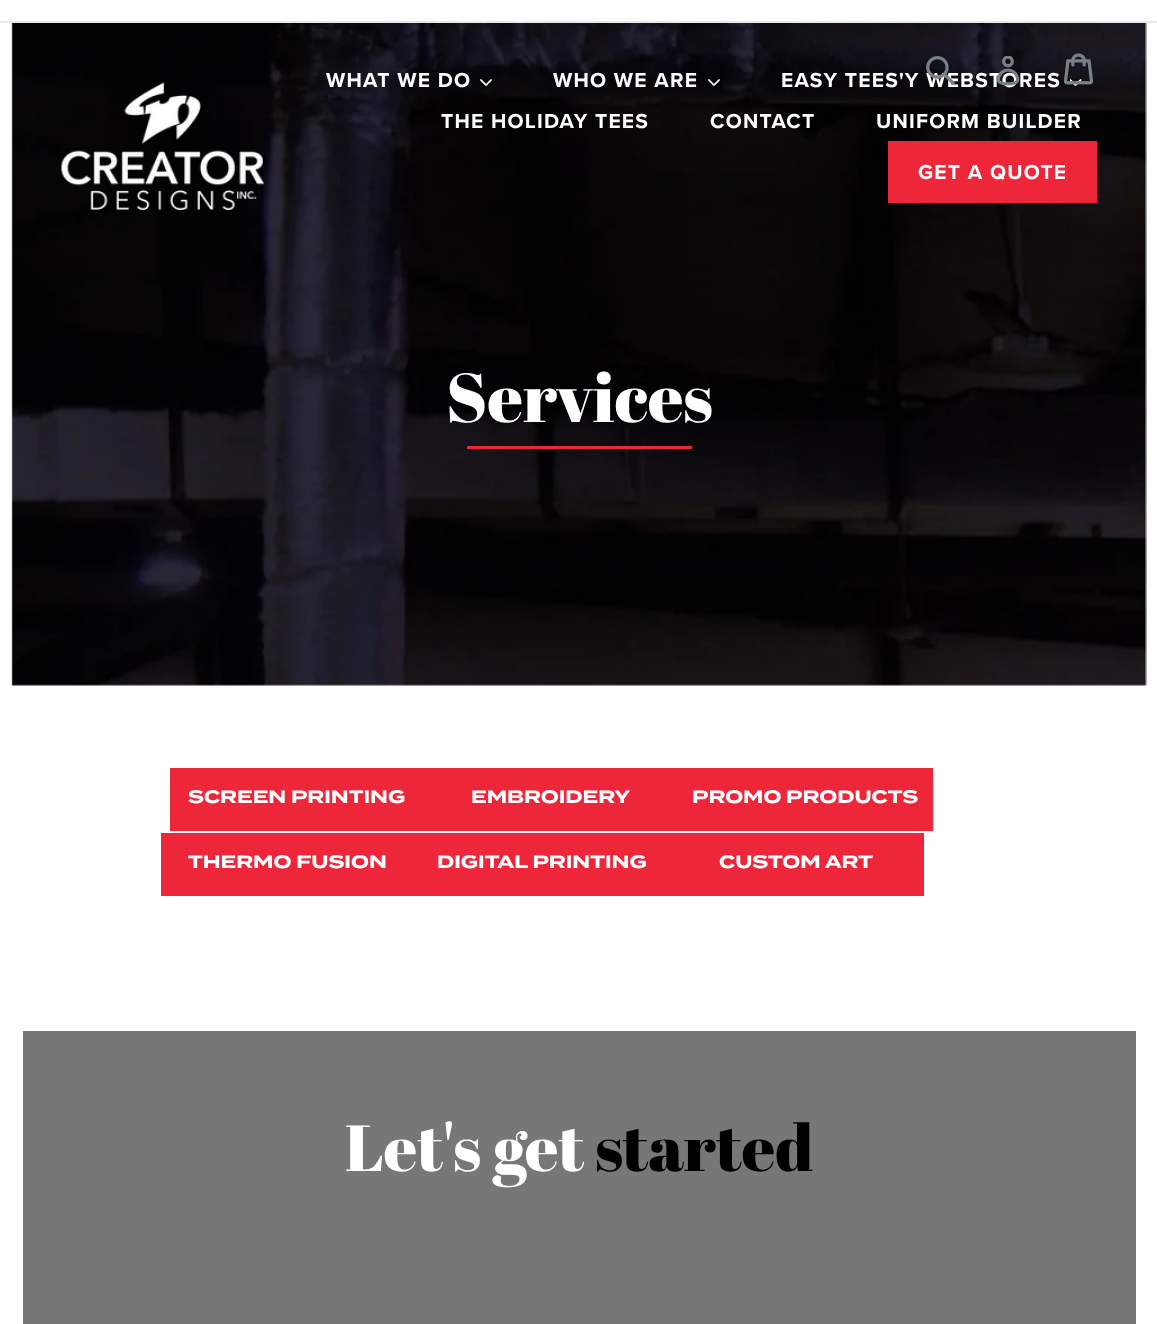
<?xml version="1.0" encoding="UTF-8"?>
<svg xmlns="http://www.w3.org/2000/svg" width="1157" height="1324">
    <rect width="100%" height="100%" fill="#FFFFFF"/>
    <rect x="0" y="21" width="1157" height="2" fill="#E8E9EB"/>
    <image x="11" y="23" width="1136" height="663" href="img_08.png"/>
    <text x="781" y="87" font-family="Proxima Nova" font-size="21" font-weight="700" letter-spacing="1.2" fill="#FFFFFF">EASY TEES'Y WEBSTORES</text>
    <image x="926" y="56" width="29" height="29" href="img_01.png"/>
    <image x="996" y="56" width="24" height="30" href="img_02.png"/>
    <image x="1070" y="79" width="12" height="7" href="img_07.png"/>
    <image x="1064" y="53" width="30" height="32" href="img_03.png"/>
    <image x="61" y="82" width="203" height="128" href="img_04.png"/>
    <text x="326" y="87" font-family="Proxima Nova" font-size="21" font-weight="700" letter-spacing="1.2" fill="#FFFFFF">WHAT WE DO</text>
    <image x="480" y="79" width="12" height="7" href="img_05.png"/>
    <text x="553" y="87" font-family="Proxima Nova" font-size="21" font-weight="700" letter-spacing="1.2" fill="#FFFFFF">WHO WE ARE</text>
    <image x="708" y="79" width="12" height="7" href="img_06.png"/>
    <text x="441" y="128" font-family="Proxima Nova" font-size="21" font-weight="700" letter-spacing="1.2" fill="#FFFFFF">THE HOLIDAY TEES</text>
    <text x="710" y="128" font-family="Proxima Nova" font-size="21" font-weight="700" letter-spacing="1.2" fill="#FFFFFF">CONTACT</text>
    <text x="876" y="128" font-family="Proxima Nova" font-size="21" font-weight="700" letter-spacing="1.2" fill="#FFFFFF">UNIFORM BUILDER</text>
    <rect x="888" y="141" width="209" height="62" fill="#ED263A"/>
    <text x="918" y="179" font-family="Proxima Nova" font-size="21" font-weight="700" letter-spacing="1.2" fill="#FFFFFF">GET A QUOTE</text>
    <text x="446" y="422" font-family="Abril Fatface" font-size="69" fill="#FFFFFF">Services</text>
    <rect x="467" y="446" width="225" height="3" fill="#ED263A"/>
    <rect x="170" y="768" width="763" height="63" fill="#ED263A"/>
    <text x="188" y="803" font-family="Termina" font-size="18" font-weight="700" fill="#FFFFFF">SCREEN PRINTING</text>
    <text x="471" y="803" font-family="Termina" font-size="18" font-weight="700" fill="#FFFFFF">EMBROIDERY</text>
    <text x="692" y="803" font-family="Termina" font-size="18" font-weight="700" fill="#FFFFFF">PROMO PRODUCTS</text>
    <rect x="161" y="833" width="763" height="63" fill="#ED263A"/>
    <text x="188" y="868" font-family="Termina" font-size="18" font-weight="700" fill="#FFFFFF">THERMO FUSION</text>
    <text x="437" y="868" font-family="Termina" font-size="18" font-weight="700" fill="#FFFFFF">DIGITAL PRINTING</text>
    <text x="719" y="868" font-family="Termina" font-size="18" font-weight="700" fill="#FFFFFF">CUSTOM ART</text>
    <rect x="23" y="1031" width="1113" height="293" fill="#777777"/>
    <text x="345" y="1171" font-family="Abril Fatface" font-size="65" fill="#FFFFFF">Let's get</text>
    <text x="595" y="1171" font-family="Abril Fatface" font-size="65" fill="#000000">started</text>
</svg>
